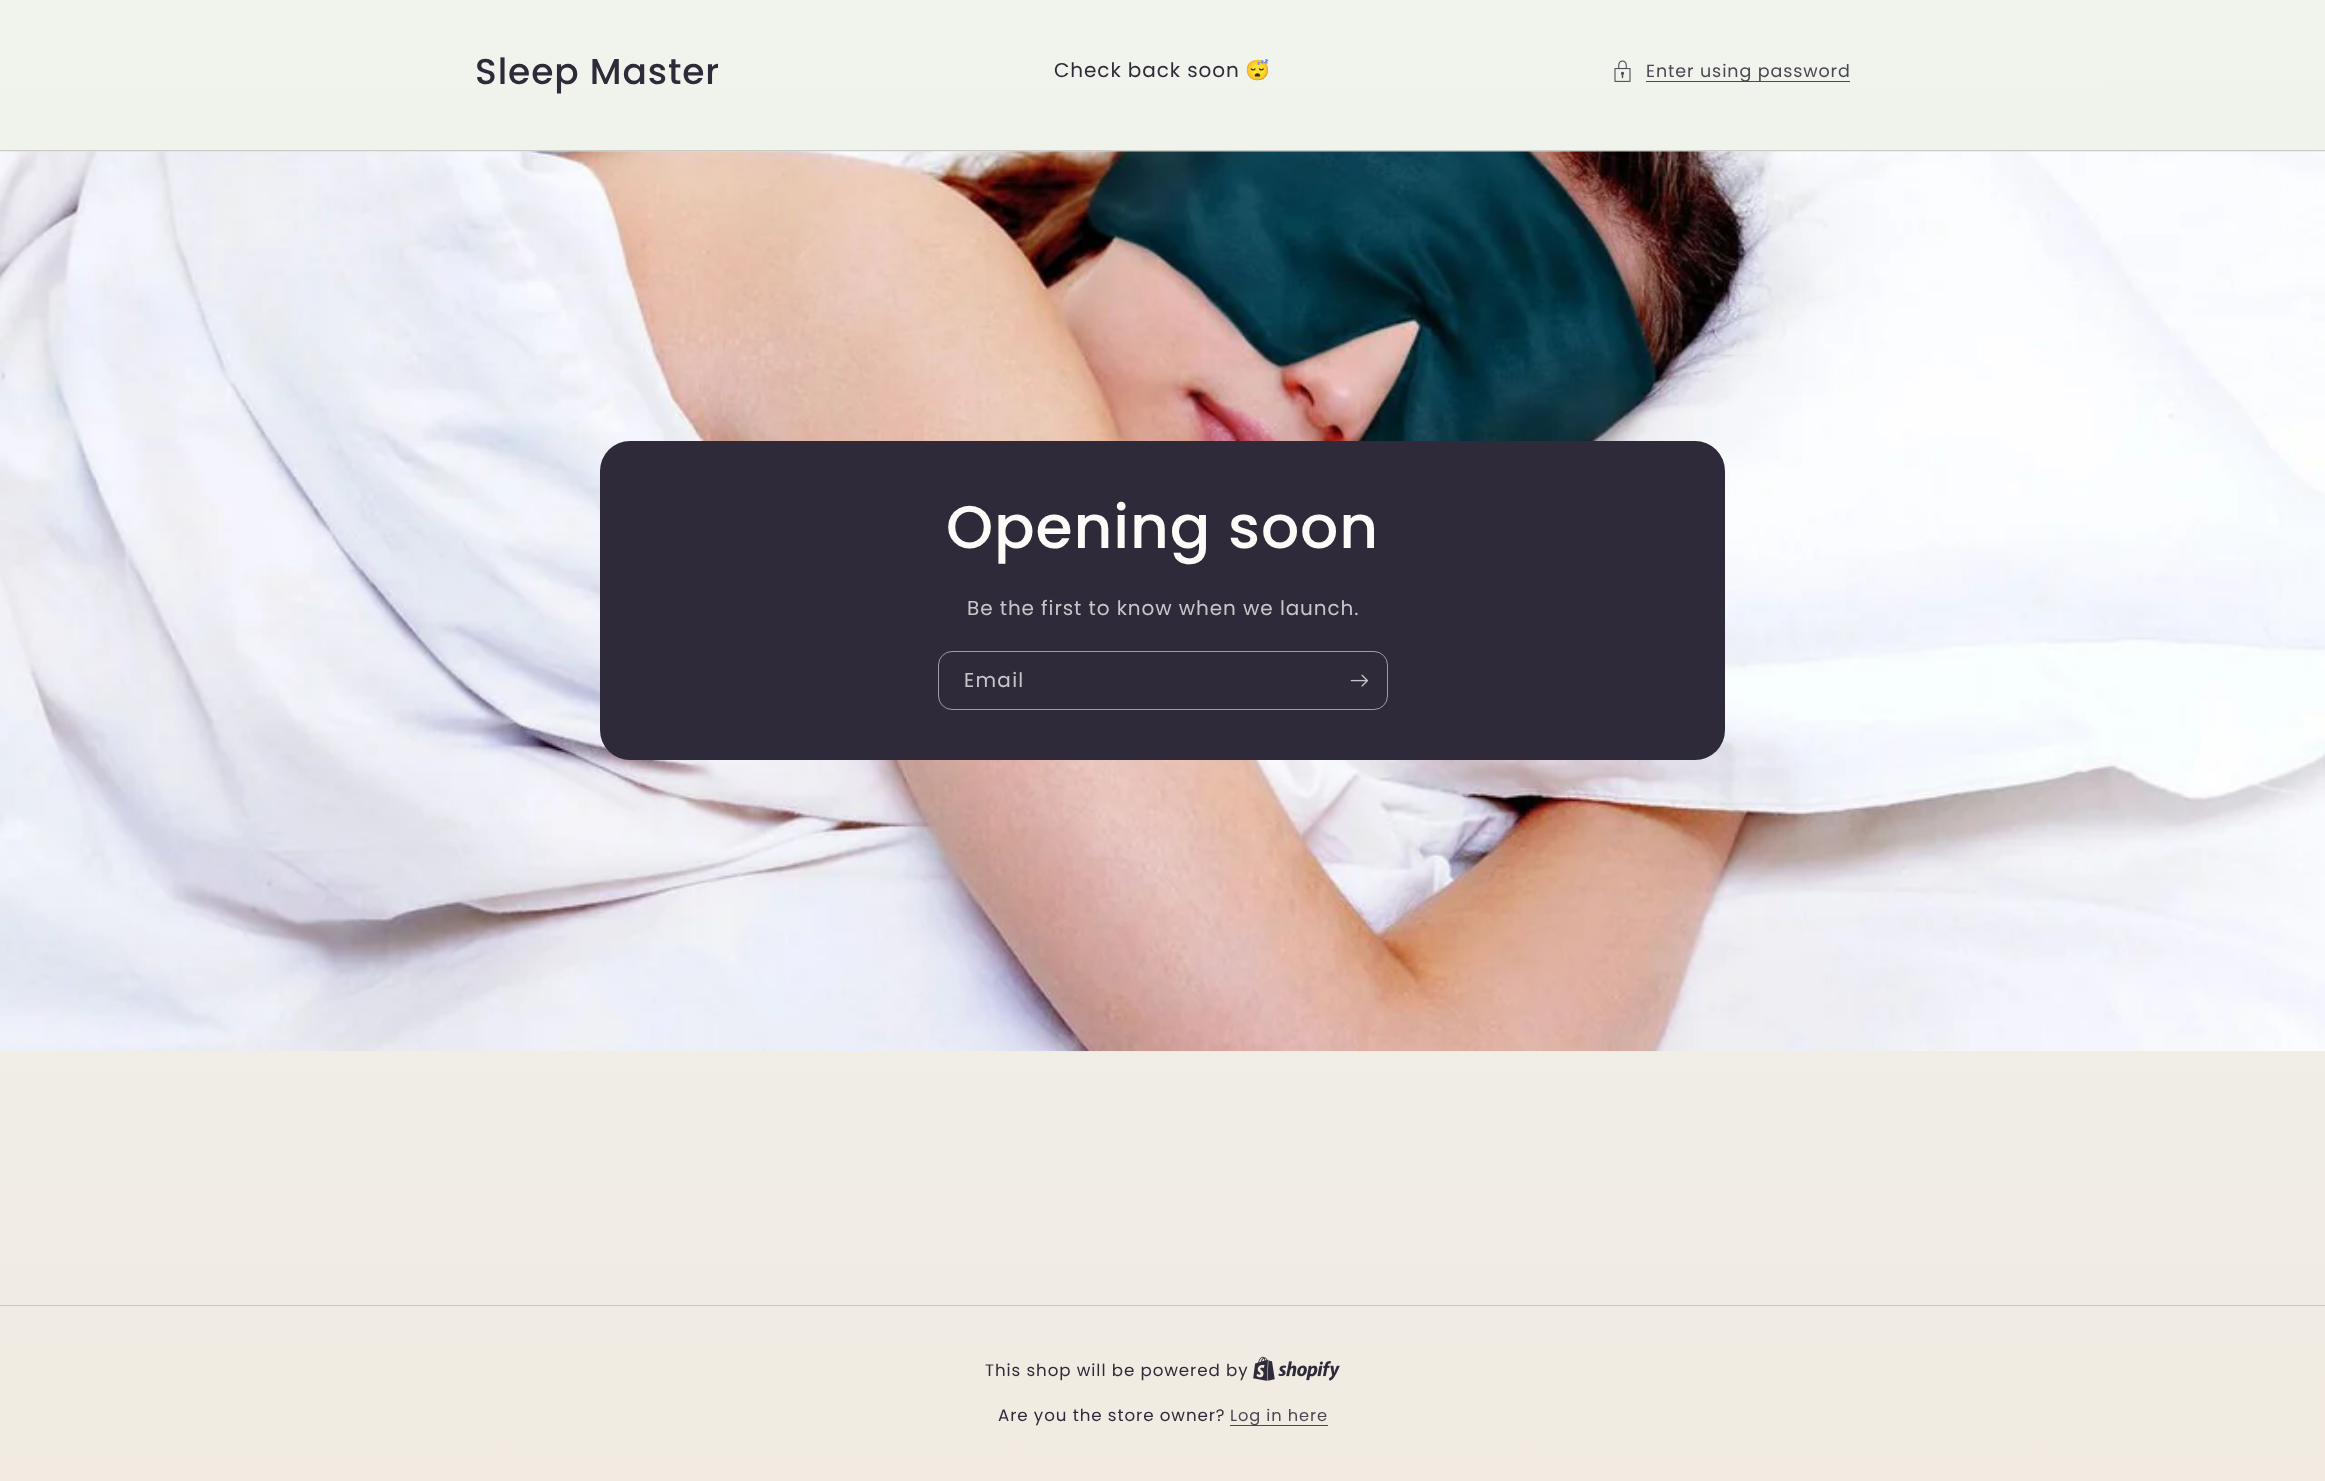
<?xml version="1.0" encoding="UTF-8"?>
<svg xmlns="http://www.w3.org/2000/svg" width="2325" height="1481">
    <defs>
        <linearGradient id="g1" gradientUnits="userSpaceOnUse" x1="1162" y1="0" x2="1163" y2="1481"><stop offset="0" stop-color="#F0F4EC"/><stop offset="1" stop-color="#F1EBE2"/></linearGradient>
        <linearGradient id="g2" gradientUnits="userSpaceOnUse" x1="1162" y1="0" x2="1163" y2="1481"><stop offset="0" stop-color="#DDE0DA"/><stop offset="1" stop-color="#DED8D1"/></linearGradient>
    </defs>
    <rect width="100%" height="100%" fill="#FFFFFF"/>
    <rect x="0" y="0" width="2325" height="1481" fill="url(#g1)"/>
    <rect x="0" y="151" width="2325" height="1" fill="url(#g2)"/>
    <text x="475" y="84" font-family="Poppins" font-size="36" font-weight="500" letter-spacing="0.9" fill="#2E2A39">Sleep Master</text>
    <text x="1054" y="77" font-family="Poppins" font-size="20" letter-spacing="0.9" fill="#2E2A39">Check back soon</text>
    <text x="1245" y="77" font-family="Noto Color Emoji" font-size="20" letter-spacing="0.9" fill="#2E2A39">😴</text>
    <image x="1614" y="60" width="17" height="22" href="img_01.png"/>
    <rect x="1646" y="81" width="204" height="1" fill="#4B4854"/>
    <text x="1646" y="77" font-family="Poppins" font-size="17.5" letter-spacing="0.9" fill="#4B4752">Enter using password</text>
    <rect x="0" y="150" width="2325" height="1" fill="#C9CBC7"/>
    <image x="0" y="151" width="2325" height="901" href="img_02.png"/>
    <rect x="600" y="441" width="1125" height="319" rx="30" fill="#2E2A39"/>
    <text x="946" y="548" font-family="Poppins" font-size="60" font-weight="500" letter-spacing="0.9" fill="#FDFBF7">Opening soon</text>
    <text x="967" y="615" font-family="Poppins" font-size="20" letter-spacing="0.9" fill="#C9C7C8">Be the first to know when we launch.</text>
    <rect x="938.5" y="651.5" width="449" height="58" rx="13.5" fill="none" stroke="#A09DA2"/>
    <text x="964" y="687" font-family="Poppins" font-size="20" letter-spacing="1.25" fill="#C9C7C8">Email</text>
    <image x="1350" y="674" width="18" height="13" href="img_03.png"/>
    <rect x="0" y="1305" width="2325" height="1" fill="#CAC5C1"/>
    <text x="985" y="1376" font-family="Poppins" font-size="16.7" letter-spacing="0.9" fill="#2E2A39">This shop will be powered by</text>
    <image x="1253" y="1356" width="87" height="25" href="img_04.png"/>
    <text x="998" y="1421" font-family="Poppins" font-size="16.7" letter-spacing="0.9" fill="#2E2A39">Are you the store owner?</text>
    <rect x="1230" y="1425" width="98" height="1" fill="#4B4752"/>
    <text x="1230" y="1421" font-family="Poppins" font-size="16.25" letter-spacing="0.9" fill="#4B4752">Log in here</text>
</svg>
